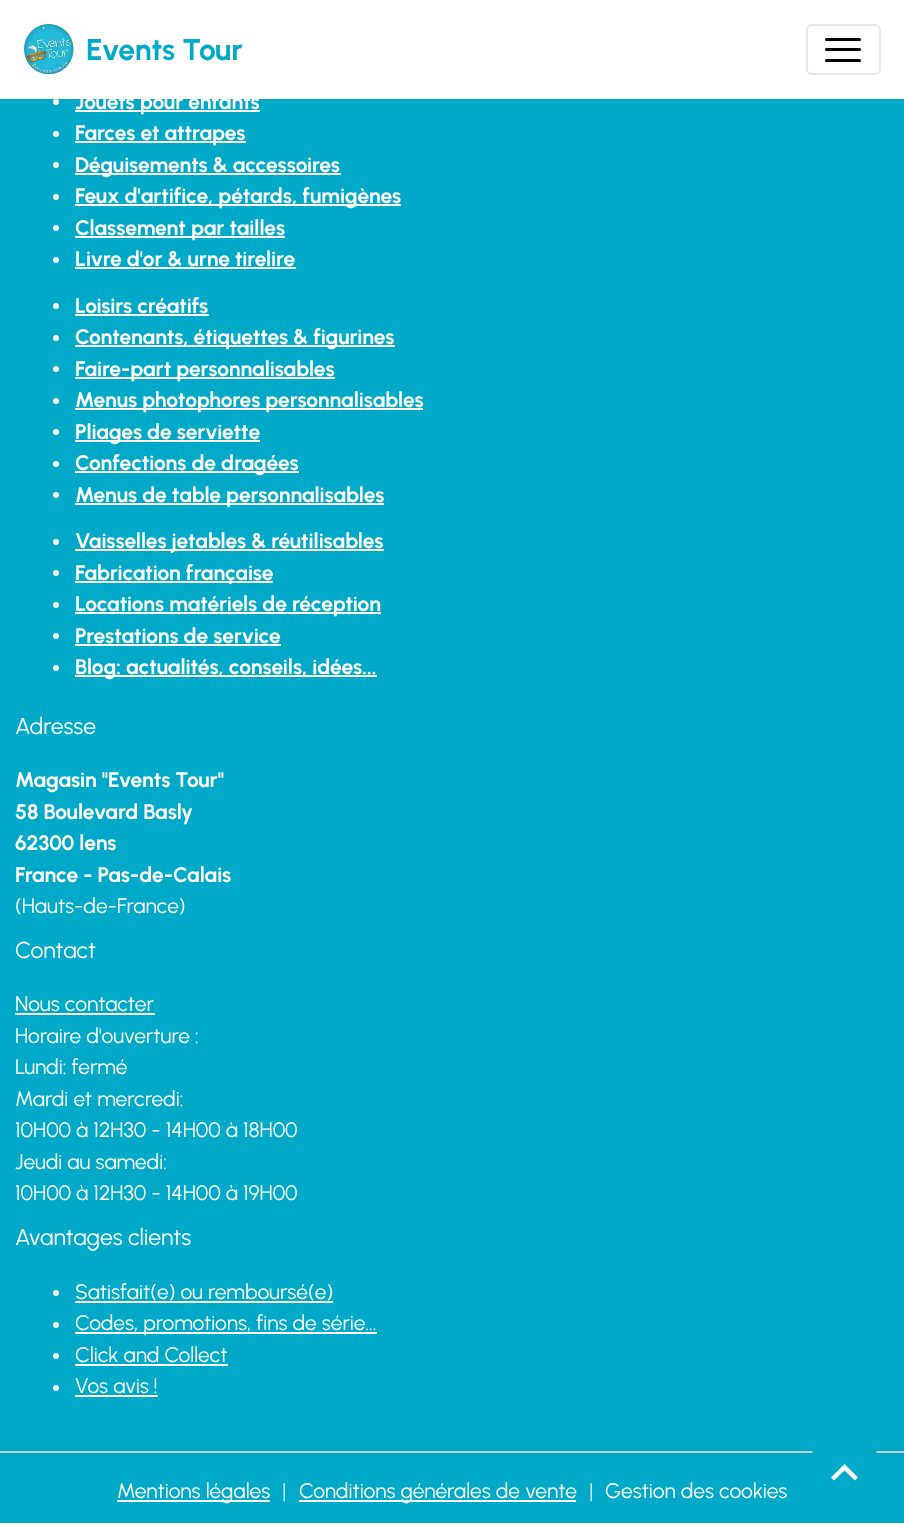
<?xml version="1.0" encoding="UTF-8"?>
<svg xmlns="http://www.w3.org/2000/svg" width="904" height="1531">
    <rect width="100%" height="100%" fill="#FFFFFF"/>
    <image x="24" y="24" width="50" height="51" href="img_01.png"/>
    <text x="86" y="60" font-family="Urbanist" font-size="30" font-weight="700" fill="#00A9C8">Events Tour</text>
    <rect x="807" y="25" width="73" height="49" rx="5" fill="none" stroke="#E6E6E6" stroke-width="2"/>
    <rect x="825" y="38" width="36" height="3" rx="1.5" fill="#000000"/>
    <rect x="825" y="48" width="36" height="3" rx="1.5" fill="#000000"/>
    <rect x="825" y="59" width="36" height="3" rx="1.5" fill="#000000"/>
    <rect x="0" y="99" width="904" height="1424" fill="#00A9C8"/>
    <circle cx="56" cy="102" r="3" fill="#FFFFFF"/>
    <rect x="75" y="110" width="185" height="2" fill="#FFFFFF"/>
    <text x="75" y="109" font-family="Urbanist" font-size="21" font-weight="700" fill="#FFFFFF">Jouets pour enfants</text>
    <circle cx="56" cy="134" r="3" fill="#FFFFFF"/>
    <rect x="75" y="141" width="171" height="2" fill="#FFFFFF"/>
    <text x="75" y="140" font-family="Urbanist" font-size="21" font-weight="700" fill="#FFFFFF">Farces et attrapes</text>
    <circle cx="56" cy="165" r="3" fill="#FFFFFF"/>
    <rect x="75" y="173" width="266" height="2" fill="#FFFFFF"/>
    <text x="75" y="172" font-family="Urbanist" font-size="21" font-weight="700" fill="#FFFFFF">Déguisements &amp; accessoires</text>
    <circle cx="56" cy="197" r="3" fill="#FFFFFF"/>
    <rect x="75" y="204" width="326" height="2" fill="#FFFFFF"/>
    <text x="75" y="203" font-family="Urbanist" font-size="21" font-weight="700" fill="#FFFFFF">Feux d'artifice, pétards, fumigènes</text>
    <circle cx="56" cy="228" r="3" fill="#FFFFFF"/>
    <rect x="75" y="236" width="210" height="2" fill="#FFFFFF"/>
    <text x="75" y="235" font-family="Urbanist" font-size="21" font-weight="700" fill="#FFFFFF">Classement par tailles</text>
    <circle cx="56" cy="260" r="3" fill="#FFFFFF"/>
    <text x="75" y="266" font-family="Urbanist" font-size="21" font-weight="700" fill="#FFFFFF">Livre d'or &amp; urne tirelire</text>
    <rect x="75" y="267" width="221" height="2" fill="#FFFFFF"/>
    <circle cx="56" cy="306" r="3" fill="#FFFFFF"/>
    <text x="75" y="313" font-family="Urbanist" font-size="21" font-weight="700" fill="#FFFFFF">Loisirs créatifs</text>
    <rect x="75" y="314" width="134" height="2" fill="#FFFFFF"/>
    <circle cx="56" cy="338" r="3" fill="#FFFFFF"/>
    <rect x="75" y="345" width="320" height="2" fill="#FFFFFF"/>
    <text x="75" y="344" font-family="Urbanist" font-size="21" font-weight="700" fill="#FFFFFF">Contenants, étiquettes &amp; figurines</text>
    <circle cx="56" cy="369" r="3" fill="#FFFFFF"/>
    <rect x="75" y="377" width="260" height="2" fill="#FFFFFF"/>
    <text x="75" y="376" font-family="Urbanist" font-size="21" font-weight="700" fill="#FFFFFF">Faire-part personnalisables</text>
    <circle cx="56" cy="401" r="3" fill="#FFFFFF"/>
    <rect x="75" y="408" width="348" height="2" fill="#FFFFFF"/>
    <text x="75" y="407" font-family="Urbanist" font-size="21" font-weight="700" fill="#FFFFFF">Menus photophores personnalisables</text>
    <circle cx="56" cy="432" r="3" fill="#FFFFFF"/>
    <rect x="75" y="440" width="185" height="2" fill="#FFFFFF"/>
    <text x="75" y="439" font-family="Urbanist" font-size="21" font-weight="700" fill="#FFFFFF">Pliages de serviette</text>
    <circle cx="56" cy="464" r="3" fill="#FFFFFF"/>
    <rect x="75" y="471" width="224" height="2" fill="#FFFFFF"/>
    <text x="75" y="470" font-family="Urbanist" font-size="21" font-weight="700" fill="#FFFFFF">Confections de dragées</text>
    <circle cx="56" cy="495" r="3" fill="#FFFFFF"/>
    <rect x="75" y="503" width="309" height="2" fill="#FFFFFF"/>
    <text x="75" y="502" font-family="Urbanist" font-size="21" font-weight="700" fill="#FFFFFF">Menus de table personnalisables</text>
    <circle cx="56" cy="542" r="3" fill="#FFFFFF"/>
    <rect x="75" y="549" width="309" height="2" fill="#FFFFFF"/>
    <text x="75" y="548" font-family="Urbanist" font-size="21" font-weight="700" fill="#FFFFFF">Vaisselles jetables &amp; réutilisables</text>
    <circle cx="56" cy="573" r="3" fill="#FFFFFF"/>
    <rect x="75" y="581" width="198" height="2" fill="#FFFFFF"/>
    <text x="75" y="580" font-family="Urbanist" font-size="21" font-weight="700" fill="#FFFFFF">Fabrication française</text>
    <circle cx="56" cy="605" r="3" fill="#FFFFFF"/>
    <rect x="75" y="612" width="306" height="2" fill="#FFFFFF"/>
    <text x="75" y="611" font-family="Urbanist" font-size="21" font-weight="700" fill="#FFFFFF">Locations matériels de réception</text>
    <circle cx="56" cy="636" r="3" fill="#FFFFFF"/>
    <text x="75" y="643" font-family="Urbanist" font-size="21" font-weight="700" fill="#FFFFFF">Prestations de service</text>
    <rect x="75" y="644" width="206" height="2" fill="#FFFFFF"/>
    <circle cx="56" cy="668" r="3" fill="#FFFFFF"/>
    <rect x="75" y="675" width="302" height="2" fill="#FFFFFF"/>
    <text x="75" y="674" font-family="Urbanist" font-size="21" font-weight="700" fill="#FFFFFF">Blog: actualités, conseils, idées...</text>
    <text x="15" y="734" font-family="Urbanist" font-size="23" fill="#FFFFFF">Adresse</text>
    <text font-family="Urbanist" font-size="21" font-weight="700" fill="#FFFFFF">
        <tspan x="15" y="787">Magasin "Events Tour"</tspan>
        <tspan x="15" y="819">58 Boulevard Basly</tspan>
        <tspan x="15" y="850">62300 lens</tspan>
        <tspan x="15" y="882">France - Pas-de-Calais</tspan>
    </text>
    <text x="15" y="913" font-family="Urbanist" font-size="21" fill="#FFFFFF">(Hauts-de-France)</text>
    <text x="15" y="958" font-family="Urbanist" font-size="23" fill="#FFFFFF">Contact</text>
    <text x="15" y="1011" font-family="Urbanist" font-size="21" fill="#FFFFFF">Nous contacter</text>
    <rect x="15" y="1013" width="140" height="2" fill="#FFFFFF"/>
    <text font-family="Urbanist" font-size="21" fill="#FFFFFF">
        <tspan x="15" y="1043">Horaire d'ouverture :</tspan>
        <tspan x="15" y="1074">Lundi: fermé</tspan>
        <tspan x="15" y="1106">Mardi et mercredi:</tspan>
        <tspan x="15" y="1137">10H00 à 12H30 - 14H00 à 18H00</tspan>
        <tspan x="15" y="1169">Jeudi au samedi:</tspan>
        <tspan x="15" y="1200">10H00 à 12H30 - 14H00 à 19H00</tspan>
    </text>
    <text x="15" y="1245" font-family="Urbanist" font-size="23" fill="#FFFFFF">Avantages clients</text>
    <circle cx="56" cy="1293" r="3" fill="#FFFFFF"/>
    <text x="75" y="1299" font-family="Urbanist" font-size="21" fill="#FFFFFF">Satisfait(e) ou remboursé(e)</text>
    <rect x="75" y="1301" width="258" height="2" fill="#FFFFFF"/>
    <circle cx="56" cy="1325" r="3" fill="#FFFFFF"/>
    <rect x="75" y="1332" width="302" height="2" fill="#FFFFFF"/>
    <text x="75" y="1330" font-family="Urbanist" font-size="21" fill="#FFFFFF">Codes, promotions, fins de série...</text>
    <circle cx="56" cy="1356" r="3" fill="#FFFFFF"/>
    <text x="75" y="1362" font-family="Urbanist" font-size="21" fill="#FFFFFF">Click and Collect</text>
    <rect x="75" y="1364" width="153" height="2" fill="#FFFFFF"/>
    <circle cx="56" cy="1388" r="3" fill="#FFFFFF"/>
    <text x="75" y="1393" font-family="Urbanist" font-size="21" fill="#FFFFFF">Vos avis !</text>
    <rect x="75" y="1395" width="83" height="2" fill="#FFFFFF"/>
    <rect x="0" y="1451" width="904" height="2" fill="#CCCCCC"/>
    <rect x="117" y="1500" width="153" height="2" fill="#FFFFFF"/>
    <text x="117" y="1498" font-family="Urbanist" font-size="21" fill="#FFFFFF">Mentions légales</text>
    <text x="282" y="1498" font-family="Urbanist" font-size="21" fill="#CCEEF4">|</text>
    <rect x="299" y="1500" width="277" height="2" fill="#FFFFFF"/>
    <text x="299" y="1498" font-family="Urbanist" font-size="21" fill="#FFFFFF">Conditions générales de vente</text>
    <text x="589" y="1498" font-family="Urbanist" font-size="21" fill="#CCEEF4">|</text>
    <text x="605" y="1498" font-family="Urbanist" font-size="21" fill="#FFFFFF">Gestion des cookies</text>
    <circle cx="844.5" cy="1471.5" r="37.5" fill="#00A9C8"/>
    <path d="M 844.5 1464 L 858 1477.5 L 855 1480.5 L 844.5 1470.5 L 834 1480.5 L 831 1477.5 Z" fill="#FFFFFF"/>
</svg>
